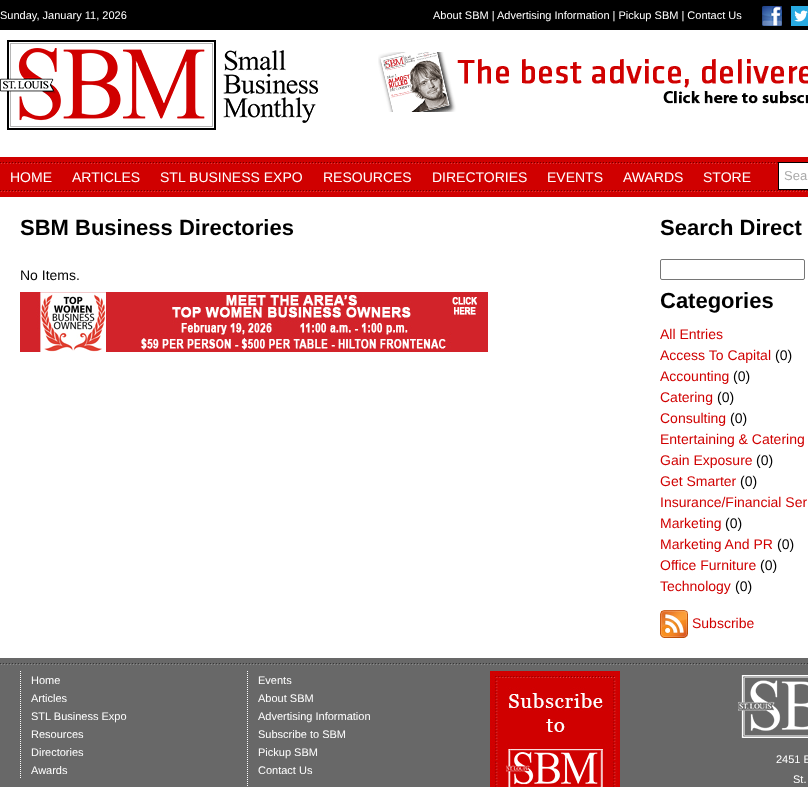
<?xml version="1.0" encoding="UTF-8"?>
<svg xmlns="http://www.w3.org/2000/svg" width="808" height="787">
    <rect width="100%" height="100%" fill="#000000"/>
    <text x="0" y="19" font-family="Liberation Sans" font-size="11" fill="#FFFFFF">Sunday, January 11, 2026</text>
    <text x="433" y="19" font-family="Liberation Sans" font-size="11" fill="#FFFFFF">About SBM | Advertising Information | Pickup SBM | Contact Us</text>
    <image x="762" y="6" width="20" height="20" href="img_01.png"/>
    <image x="791" y="6" width="17" height="20" href="img_02.png"/>
    <rect x="0" y="30" width="808" height="628" fill="#FFFFFF"/>
    <image x="0" y="40" width="318" height="90" href="img_03.png"/>
    <image x="378" y="52" width="430" height="60" href="img_04.png"/>
    <rect x="0" y="157" width="808" height="40" fill="#D00000"/>
    <image x="0" y="162" width="808" height="30" href="img_05.png"/>
    <text x="10" y="182" font-family="Liberation Sans" font-size="14" fill="#FFFFFF">HOME</text>
    <text x="72" y="182" font-family="Liberation Sans" font-size="14" fill="#FFFFFF">ARTICLES</text>
    <text x="160" y="182" font-family="Liberation Sans" font-size="14" fill="#FFFFFF">STL BUSINESS EXPO</text>
    <text x="323" y="182" font-family="Liberation Sans" font-size="14" fill="#FFFFFF">RESOURCES</text>
    <text x="432" y="182" font-family="Liberation Sans" font-size="14" fill="#FFFFFF">DIRECTORIES</text>
    <text x="547" y="182" font-family="Liberation Sans" font-size="14" fill="#FFFFFF">EVENTS</text>
    <text x="623" y="182" font-family="Liberation Sans" font-size="14" fill="#FFFFFF">AWARDS</text>
    <text x="703" y="182" font-family="Liberation Sans" font-size="14" fill="#FFFFFF">STORE</text>
    <rect x="778.5" y="162.5" width="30" height="27" fill="#FFFFFF" stroke="#000000"/>
    <text x="784" y="180" font-family="Liberation Sans" font-size="13" fill="#AAAAAA">Sea</text>
    <text x="20" y="235" font-family="Liberation Sans" font-size="22" font-weight="700" fill="#000000">SBM Business Directories</text>
    <text x="20" y="280" font-family="Liberation Sans" font-size="14" fill="#000000">No Items.</text>
    <image x="20" y="292" width="468" height="60" href="img_06.png"/>
    <text x="660" y="235" font-family="Liberation Sans" font-size="22" font-weight="700" fill="#000000">Search Direct</text>
    <rect x="660.5" y="259.5" width="144" height="20" rx="1.5" fill="none" stroke="#767676"/>
    <text x="660" y="308" font-family="Liberation Sans" font-size="22" font-weight="700" fill="#000000">Categories</text>
    <text font-family="Liberation Sans" font-size="14" fill="#D00000">
        <tspan x="660" y="339">All Entries</tspan>
        <tspan x="660" y="360">Access To Capital</tspan>
    </text>
    <text x="775" y="360" font-family="Liberation Sans" font-size="14" fill="#000000">(0)</text>
    <text x="660" y="381" font-family="Liberation Sans" font-size="14" fill="#D00000">Accounting</text>
    <text x="733" y="381" font-family="Liberation Sans" font-size="14" fill="#000000">(0)</text>
    <text x="660" y="402" font-family="Liberation Sans" font-size="14" fill="#D00000">Catering</text>
    <text x="717" y="402" font-family="Liberation Sans" font-size="14" fill="#000000">(0)</text>
    <text x="660" y="423" font-family="Liberation Sans" font-size="14" fill="#D00000">Consulting</text>
    <text x="730" y="423" font-family="Liberation Sans" font-size="14" fill="#000000">(0)</text>
    <text font-family="Liberation Sans" font-size="14" fill="#D00000">
        <tspan x="660" y="444">Entertaining &amp; Catering</tspan>
        <tspan x="660" y="465">Gain Exposure</tspan>
    </text>
    <text x="756" y="465" font-family="Liberation Sans" font-size="14" fill="#000000">(0)</text>
    <text x="660" y="486" font-family="Liberation Sans" font-size="14" fill="#D00000">Get Smarter</text>
    <text x="740" y="486" font-family="Liberation Sans" font-size="14" fill="#000000">(0)</text>
    <text font-family="Liberation Sans" font-size="14" fill="#D00000">
        <tspan x="660" y="507">Insurance/Financial Ser</tspan>
        <tspan x="660" y="528">Marketing</tspan>
    </text>
    <text x="725" y="528" font-family="Liberation Sans" font-size="14" fill="#000000">(0)</text>
    <text x="660" y="549" font-family="Liberation Sans" font-size="14" fill="#D00000">Marketing And PR</text>
    <text x="777" y="549" font-family="Liberation Sans" font-size="14" fill="#000000">(0)</text>
    <text x="660" y="570" font-family="Liberation Sans" font-size="14" fill="#D00000">Office Furniture</text>
    <text x="760" y="570" font-family="Liberation Sans" font-size="14" fill="#000000">(0)</text>
    <text x="660" y="591" font-family="Liberation Sans" font-size="14" fill="#D00000">Technology</text>
    <text x="735" y="591" font-family="Liberation Sans" font-size="14" fill="#000000">(0)</text>
    <image x="660" y="610" width="28" height="28" href="img_07.png"/>
    <text x="692" y="628" font-family="Liberation Sans" font-size="14" fill="#D00000">Subscribe</text>
    <rect x="0" y="658" width="808" height="129" fill="#686868"/>
    <image x="0" y="663" width="808" height="2" href="img_08.png"/>
    <path d="M 20.5 671 V 779" fill="none" stroke="#FFFFFF" stroke-dasharray="1 1"/>
    <text font-family="Liberation Sans" font-size="11" fill="#FFFFFF">
        <tspan x="31" y="684">Home</tspan>
        <tspan x="31" y="702">Articles</tspan>
        <tspan x="31" y="720">STL Business Expo</tspan>
        <tspan x="31" y="738">Resources</tspan>
        <tspan x="31" y="756">Directories</tspan>
        <tspan x="31" y="774">Awards</tspan>
    </text>
    <path d="M 247.5 671 V 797" fill="none" stroke="#FFFFFF" stroke-dasharray="1 1"/>
    <text font-family="Liberation Sans" font-size="11" fill="#FFFFFF">
        <tspan x="258" y="684">Events</tspan>
        <tspan x="258" y="702">About SBM</tspan>
        <tspan x="258" y="720">Advertising Information</tspan>
        <tspan x="258" y="738">Subscribe to SBM</tspan>
        <tspan x="258" y="756">Pickup SBM</tspan>
        <tspan x="258" y="774">Contact Us</tspan>
    </text>
    <image x="490" y="671" width="130" height="116" href="img_09.png"/>
    <image x="738" y="675" width="70" height="63" href="img_10.png"/>
    <text x="776" y="763" font-family="Liberation Sans" font-size="11" fill="#FFFFFF">2451 E</text>
    <text x="793" y="783" font-family="Liberation Sans" font-size="11" fill="#FFFFFF">St.</text>
</svg>
